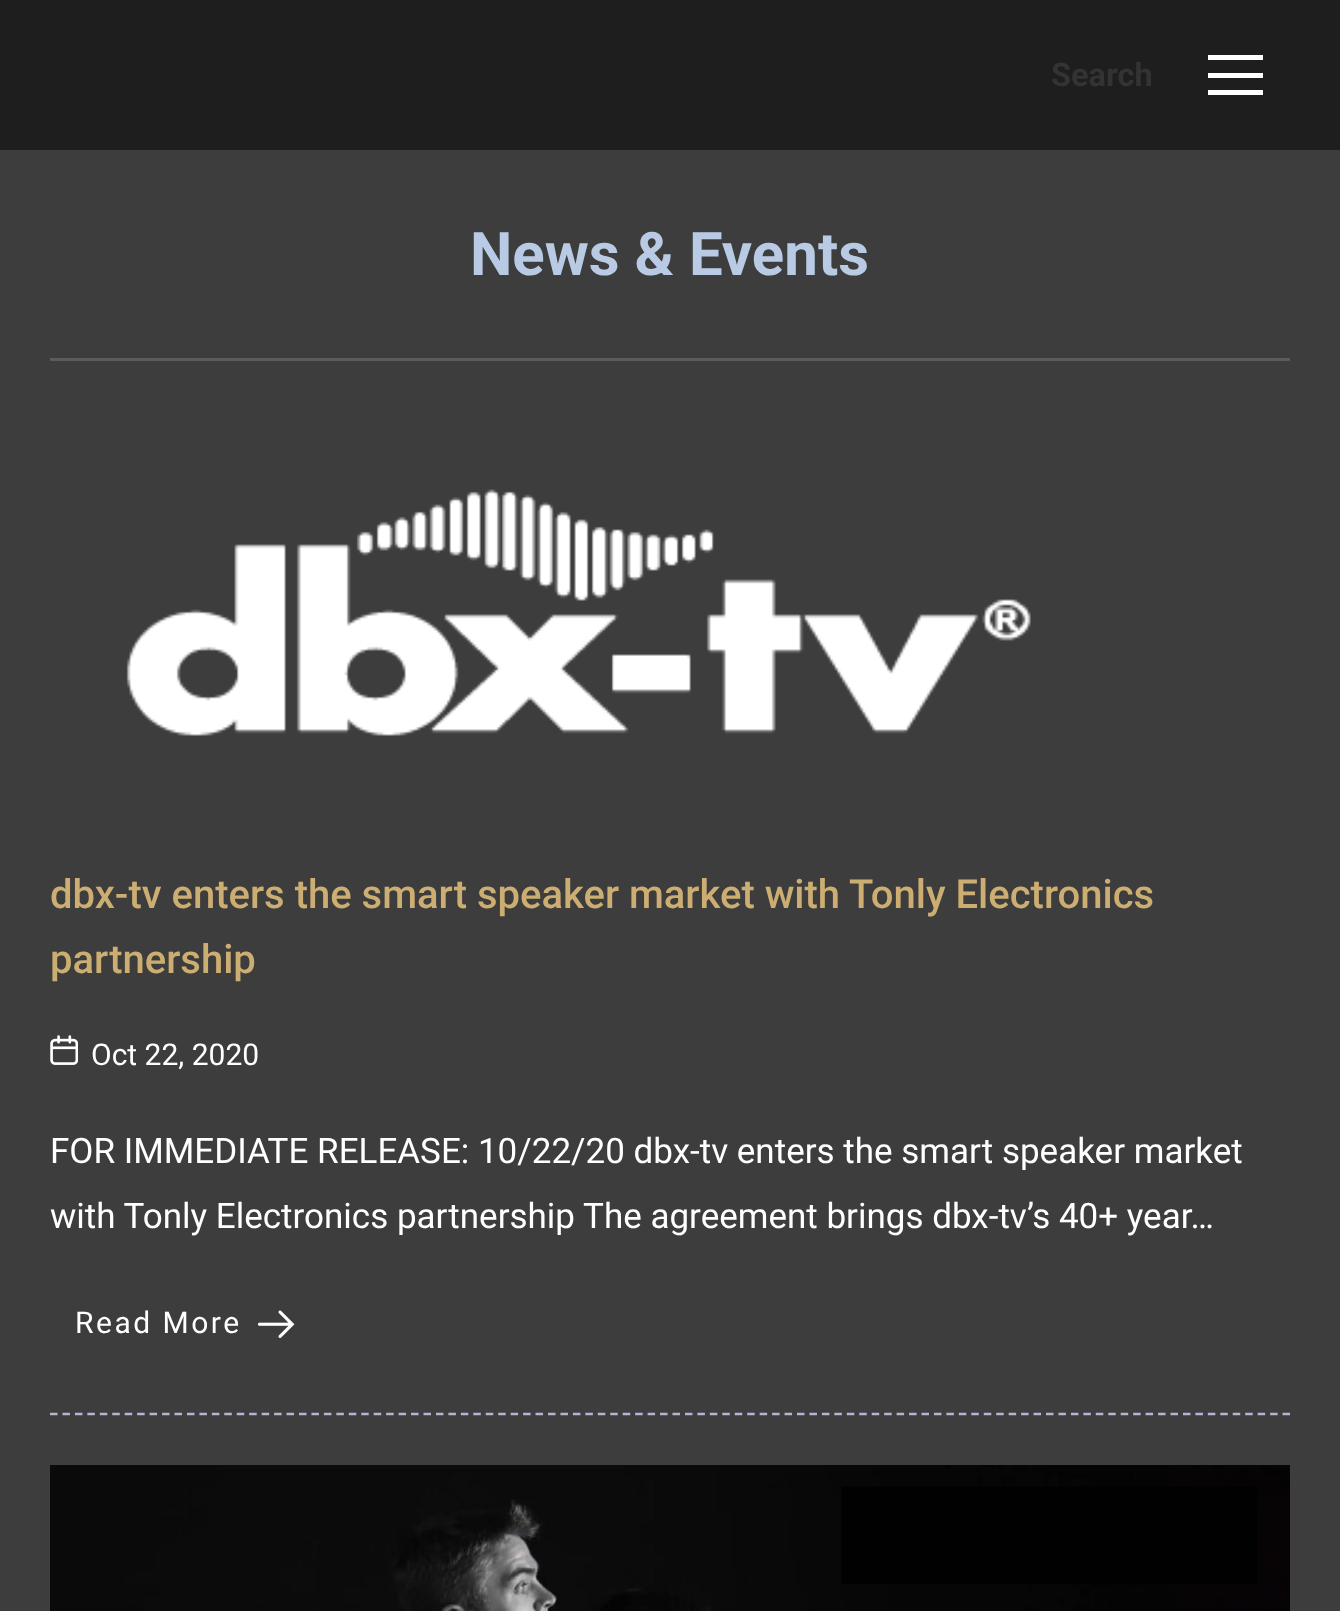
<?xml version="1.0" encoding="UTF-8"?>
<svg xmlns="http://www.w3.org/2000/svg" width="1340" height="1611">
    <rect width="100%" height="100%" fill="#3D3D3D"/>
    <rect x="0" y="0" width="1340" height="150" fill="#1E1E1E"/>
    <text x="1051" y="86" font-family="Roboto" font-size="32.5" font-weight="700" fill="#333333">Search</text>
    <rect x="1208" y="55" width="55" height="5" fill="#FFFFFF"/>
    <rect x="1208" y="73" width="55" height="5" fill="#FFFFFF"/>
    <rect x="1208" y="90" width="55" height="5" fill="#FFFFFF"/>
    <text x="470" y="275" font-family="Roboto" font-size="60" font-weight="700" fill="#B9CAE4">News &amp; Events</text>
    <rect x="50" y="358" width="1240" height="3" fill="#5B5B5B"/>
    <path d="M 50 1414 H 1290" fill="none" stroke="#B4B4D6" stroke-width="2.5" stroke-dasharray="7.5 4.95"/>
    <image x="126" y="489" width="905" height="247" href="img_01.png"/>
    <text font-family="Roboto" font-size="40" font-weight="500" fill="#CCAE72">
        <tspan x="50" y="908">dbx-tv enters the smart speaker market with Tonly Electronics</tspan>
        <tspan x="50" y="973">partnership</tspan>
    </text>
    <image x="50" y="1035" width="28" height="30" href="img_02.png"/>
    <text x="91" y="1065" font-family="Roboto" font-size="30" fill="#FFFFFF">Oct 22, 2020</text>
    <text font-family="Roboto" font-size="35" fill="#FFFFFF">
        <tspan x="50" y="1163">FOR IMMEDIATE RELEASE: 10/22/20 dbx-tv enters the smart speaker market</tspan>
        <tspan x="50" y="1228">with Tonly Electronics partnership The agreement brings dbx-tv’s 40+ year…</tspan>
    </text>
    <text x="75" y="1333" font-family="Roboto" font-size="30" letter-spacing="2.5" fill="#FFFFFF">Read More</text>
    <image x="258" y="1310" width="37" height="28" href="img_03.png"/>
    <image x="50" y="1465" width="1240" height="146" href="img_04.png"/>
</svg>
